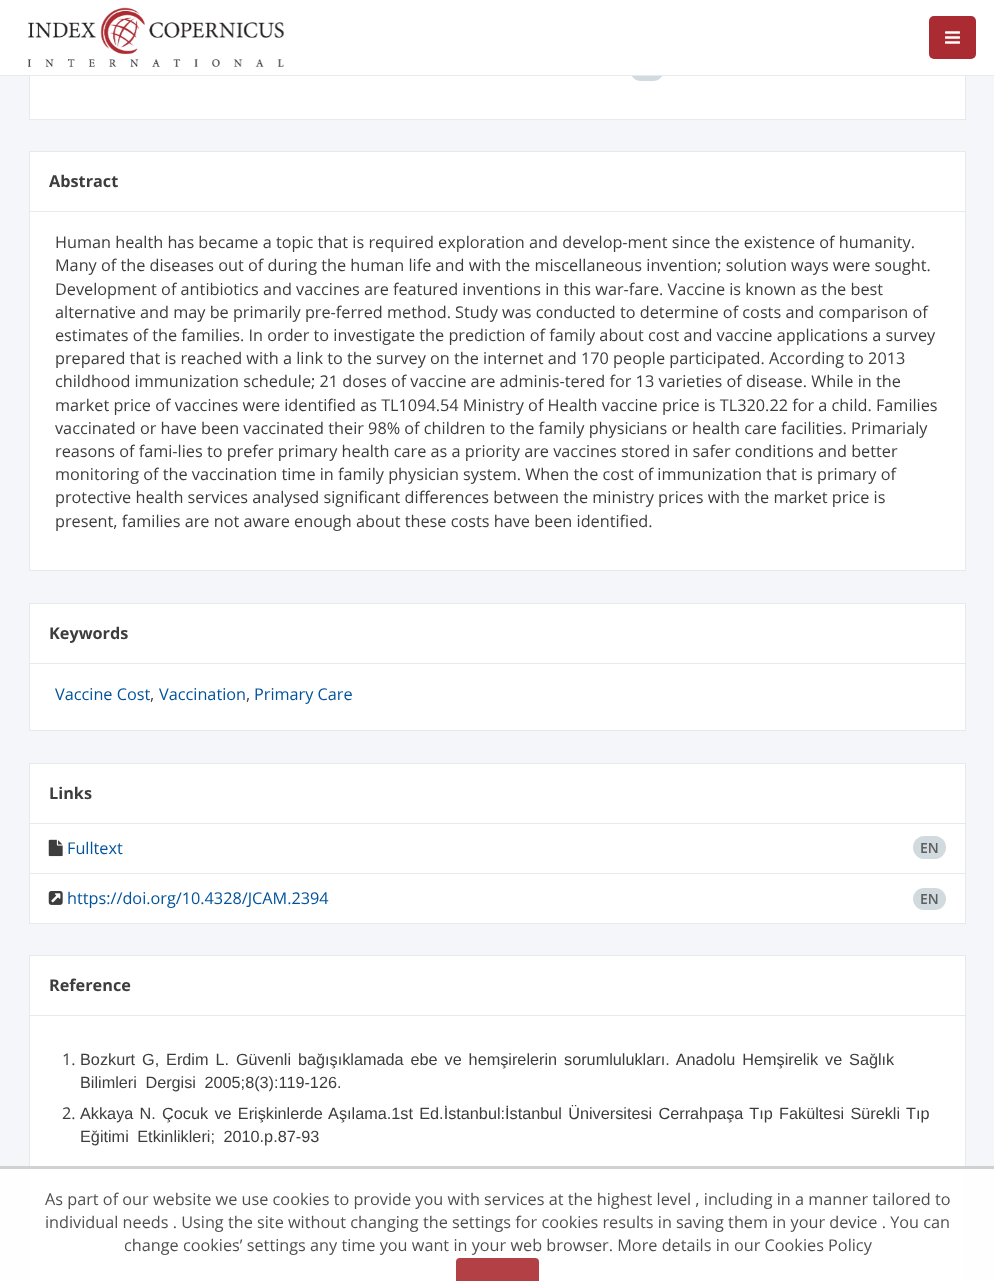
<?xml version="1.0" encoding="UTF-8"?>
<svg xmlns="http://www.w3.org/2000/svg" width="994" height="1281">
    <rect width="100%" height="100%" fill="#F4F6FA"/>
    <rect x="30" y="76" width="935" height="43" fill="#FFFFFF"/>
    <rect x="29.5" y="-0.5" width="936" height="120" fill="none" stroke="#E7EAEC"/>
    <rect x="630" y="59" width="34" height="22" rx="11" fill="#D1DADE"/>
    <rect x="0" y="0" width="994" height="75" fill="#FFFFFF"/>
    <rect x="0" y="75" width="994" height="1" fill="#E7EAEC"/>
    <image x="27" y="7" width="257" height="60" href="img_01.png"/>
    <rect x="929" y="16" width="47" height="43" rx="5" fill="#AA2B31"/>
    <image x="945" y="31" width="15" height="13" href="img_02.png"/>
    <rect x="30" y="152" width="935" height="59" fill="#FFFFFF"/>
    <rect x="29" y="151" width="937" height="1" fill="#E7EAEC"/>
    <rect x="965" y="151" width="1" height="60" fill="#E7EAEC"/>
    <rect x="29" y="151" width="1" height="60" fill="#E7EAEC"/>
    <text x="49" y="187" font-family="Open Sans" font-size="16.25" font-weight="700" fill="#3D3D3D">Abstract</text>
    <rect x="29.5" y="211.5" width="936" height="359" fill="#FFFFFF" stroke="#E7EAEC"/>
    <text font-family="Open Sans" font-size="16.25" fill="#3D3D3D">
        <tspan x="55" y="248">Human health has became a topic that is required exploration and develop-ment since the existence of humanity.</tspan>
        <tspan x="55" y="271">Many of the diseases out of during the human life and with the miscellaneous invention; solution ways were sought.</tspan>
        <tspan x="55" y="295">Development of antibiotics and vaccines are featured inventions in this war-fare. Vaccine is known as the best</tspan>
        <tspan x="55" y="318">alternative and may be primarily pre-ferred method. Study was conducted to determine of costs and comparison of</tspan>
        <tspan x="55" y="341">estimates of the families. In order to investigate the prediction of family about cost and vaccine applications a survey</tspan>
        <tspan x="55" y="364">prepared that is reached with a link to the survey on the internet and 170 people participated. According to 2013</tspan>
        <tspan x="55" y="387">childhood immunization schedule; 21 doses of vaccine are adminis-tered for 13 varieties of disease. While in the</tspan>
        <tspan x="55" y="411">market price of vaccines were identified as TL1094.54 Ministry of Health vaccine price is TL320.22 for a child. Families</tspan>
        <tspan x="55" y="434">vaccinated or have been vaccinated their 98% of children to the family physicians or health care facilities. Primarialy</tspan>
        <tspan x="55" y="457">reasons of fami-lies to prefer primary health care as a priority are vaccines stored in safer conditions and better</tspan>
        <tspan x="55" y="480">monitoring of the vaccination time in family physician system. When the cost of immunization that is primary of</tspan>
        <tspan x="55" y="503">protective health services analysed significant differences between the ministry prices with the market price is</tspan>
        <tspan x="55" y="527">present, families are not aware enough about these costs have been identified.</tspan>
    </text>
    <rect x="30" y="604" width="935" height="59" fill="#FFFFFF"/>
    <rect x="29" y="603" width="937" height="1" fill="#E7EAEC"/>
    <rect x="965" y="603" width="1" height="60" fill="#E7EAEC"/>
    <rect x="29" y="603" width="1" height="60" fill="#E7EAEC"/>
    <text x="49" y="639" font-family="Open Sans" font-size="16.25" font-weight="700" fill="#3D3D3D">Keywords</text>
    <rect x="29.5" y="663.5" width="936" height="67" fill="#FFFFFF" stroke="#E7EAEC"/>
    <text x="55" y="700" font-family="Open Sans" font-size="16.25" fill="#00539B">Vaccine Cost</text>
    <text x="150" y="700" font-family="Open Sans" font-size="16.25" fill="#3D3D3D">,</text>
    <text x="159" y="700" font-family="Open Sans" font-size="16.25" fill="#00539B">Vaccination</text>
    <text x="246" y="700" font-family="Open Sans" font-size="16.25" fill="#3D3D3D">,</text>
    <text x="254" y="700" font-family="Open Sans" font-size="16.25" fill="#00539B">Primary Care</text>
    <rect x="30" y="764" width="935" height="59" fill="#FFFFFF"/>
    <rect x="29" y="763" width="937" height="1" fill="#E7EAEC"/>
    <rect x="965" y="763" width="1" height="60" fill="#E7EAEC"/>
    <rect x="29" y="763" width="1" height="60" fill="#E7EAEC"/>
    <text x="49" y="799" font-family="Open Sans" font-size="16.25" font-weight="700" fill="#3D3D3D">Links</text>
    <rect x="29.5" y="823.5" width="936" height="100" fill="#FFFFFF" stroke="#E7EAEC"/>
    <image x="48" y="839" width="15" height="18" href="img_03.png"/>
    <text x="67" y="854" font-family="Open Sans" font-size="16.25" fill="#00539B">Fulltext</text>
    <rect x="913" y="836" width="33" height="23" rx="11.5" fill="#D1DADE"/>
    <text x="920" y="853" font-family="Open Sans" font-size="14" font-weight="600" fill="#5E5E5E">EN</text>
    <rect x="30" y="873" width="935" height="1" fill="#E7EAEC"/>
    <image x="48" y="891" width="15" height="14" href="img_04.png"/>
    <text x="67" y="904" font-family="Open Sans" font-size="16.25" fill="#00539B">https://doi.org/10.4328/JCAM.2394</text>
    <rect x="913" y="888" width="33" height="22" rx="11" fill="#D1DADE"/>
    <text x="920" y="904" font-family="Open Sans" font-size="14" font-weight="600" fill="#5E5E5E">EN</text>
    <rect x="30" y="956" width="935" height="59" fill="#FFFFFF"/>
    <rect x="29" y="955" width="937" height="1" fill="#E7EAEC"/>
    <rect x="965" y="955" width="1" height="60" fill="#E7EAEC"/>
    <rect x="29" y="955" width="1" height="60" fill="#E7EAEC"/>
    <text x="49" y="991" font-family="Open Sans" font-size="16.25" font-weight="700" fill="#3D3D3D">Reference</text>
    <rect x="29.5" y="1015.5" width="936" height="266" fill="#FFFFFF" stroke="#E7EAEC"/>
    <text x="62" y="1065" font-family="Open Sans" font-size="16.25" fill="#3D3D3D">1.</text>
    <text font-family="Liberation Sans" font-size="16.25" fill="#3D3D3D">
        <tspan x="80" y="1065" word-spacing="2.4">Bozkurt G, Erdim L. Güvenli bağışıklamada ebe ve hemşirelerin sorumlulukları. Anadolu Hemşirelik ve Sağlık</tspan>
        <tspan x="80" y="1088" word-spacing="4">Bilimleri Dergisi 2005;8(3):119-126.</tspan>
    </text>
    <text x="62" y="1119" font-family="Open Sans" font-size="16.25" fill="#3D3D3D">2.</text>
    <text font-family="Liberation Sans" font-size="16.25" fill="#3D3D3D">
        <tspan x="80" y="1119" word-spacing="1.75">Akkaya N. Çocuk ve Erişkinlerde Aşılama.1st Ed.İstanbul:İstanbul Üniversitesi Cerrahpaşa Tıp Fakültesi Sürekli Tıp</tspan>
        <tspan x="80" y="1142" word-spacing="4">Eğitimi Etkinlikleri; 2010.p.87-93</tspan>
    </text>
    <rect x="0" y="1166" width="994" height="115" fill="#FFFFFF" fill-opacity="0.9"/>
    <rect x="0" y="1166" width="994" height="3" fill="#CCCCCC" fill-opacity="0.9"/>
    <text font-family="Open Sans" font-size="16.25" fill="#505050">
        <tspan x="45" y="1205">As part of our website we use cookies to provide you with services at the highest level , including in a manner tailored to</tspan>
        <tspan x="45" y="1228">individual needs . Using the site without changing the settings for cookies results in saving them in your device . You can</tspan>
    </text>
    <text x="124" y="1251" font-family="Open Sans" font-size="16.25" fill="#505050">change cookies’ settings any time you want in your web browser. More details in our Cookies Policy</text>
    <rect x="456" y="1258" width="83" height="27" rx="4" fill="#AA2B31" fill-opacity="0.9"/>
</svg>
